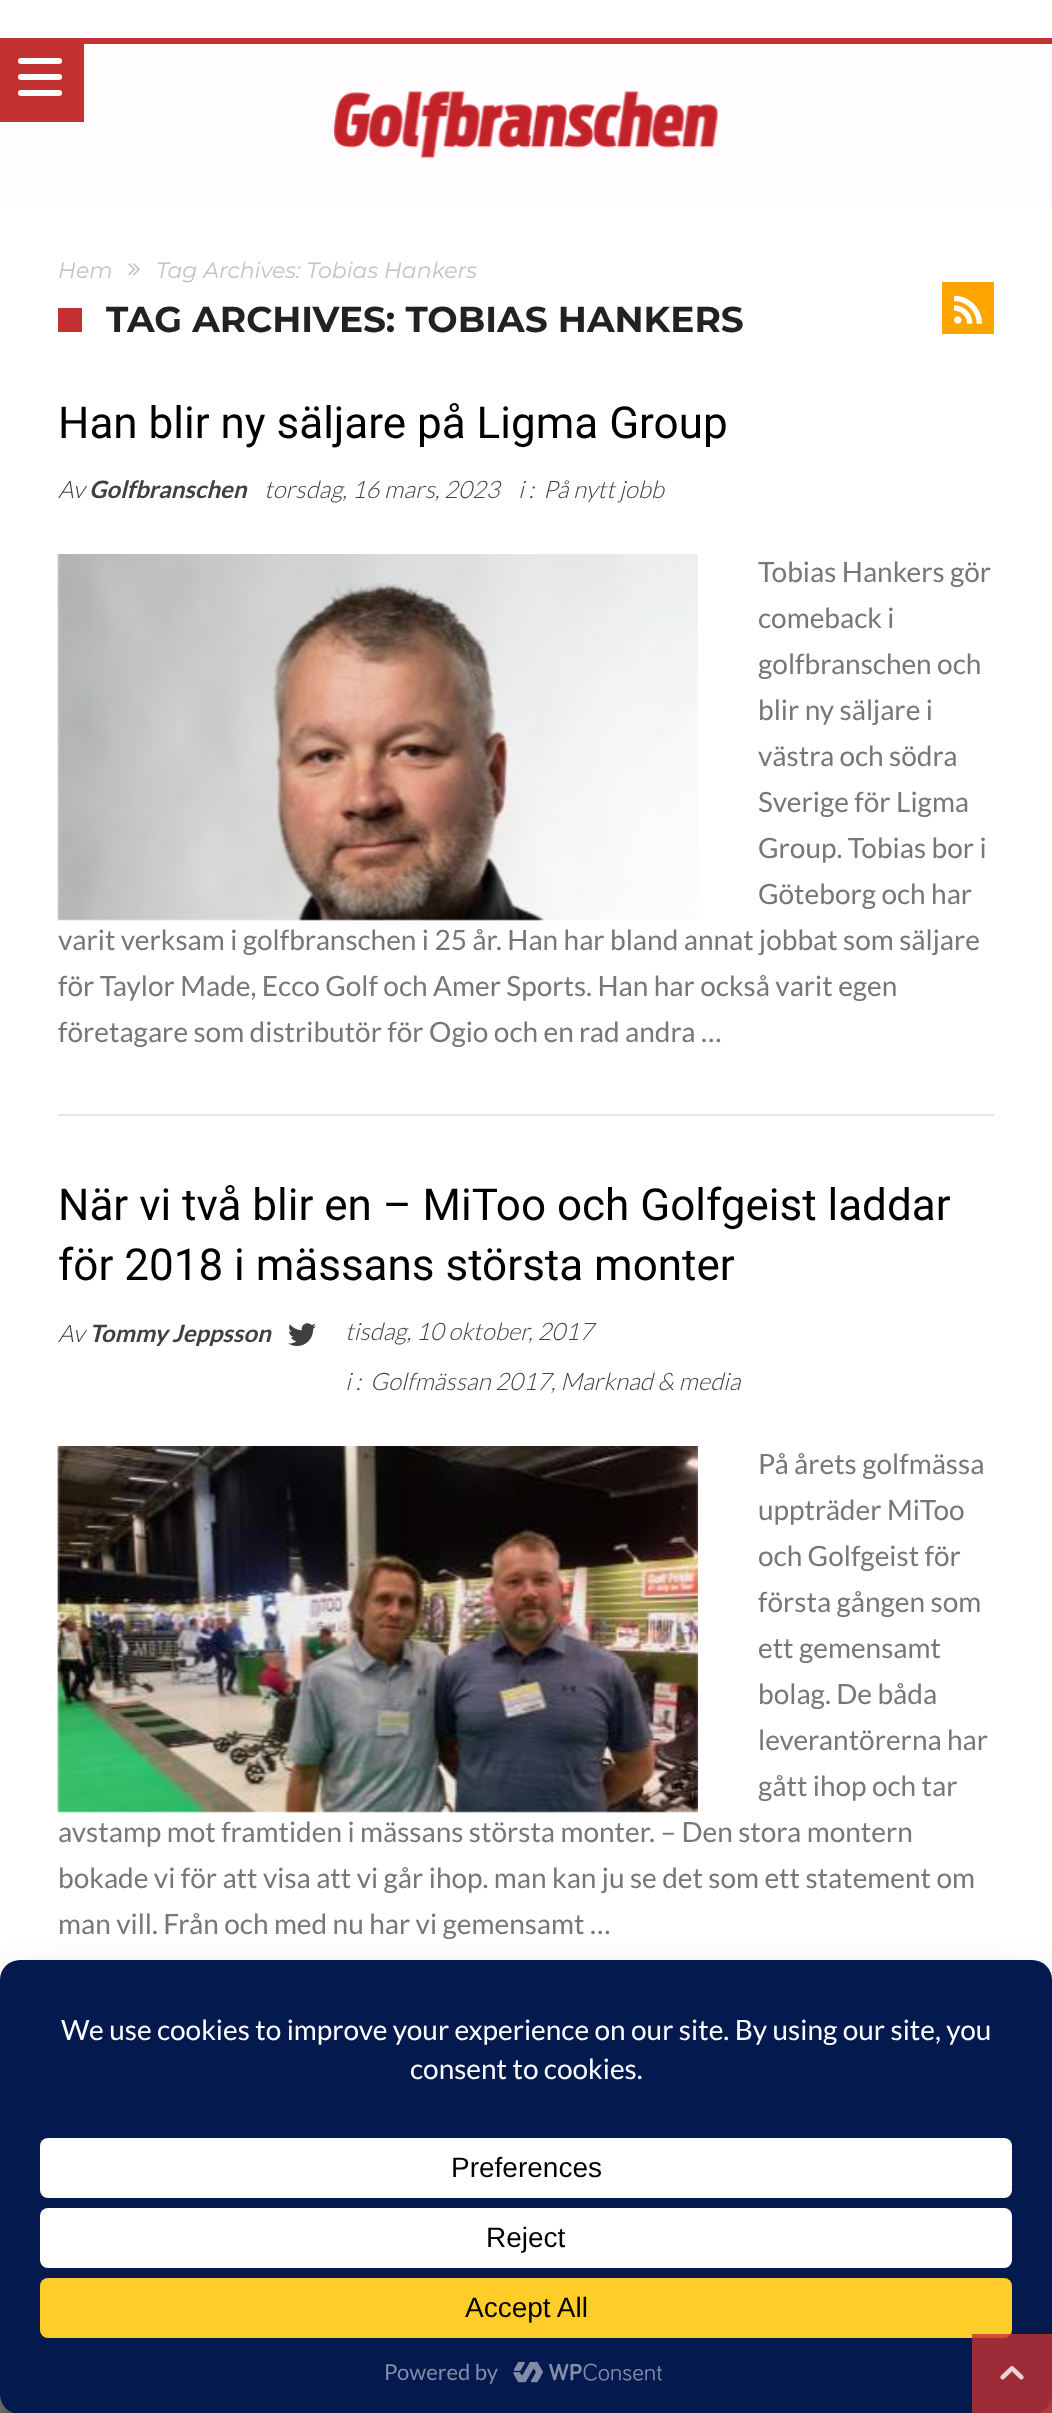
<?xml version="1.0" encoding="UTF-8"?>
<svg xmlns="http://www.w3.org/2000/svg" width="1052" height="2413">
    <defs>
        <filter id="blur1" x="-50%" y="-200%" width="200%" height="500%"><feGaussianBlur stdDeviation="5"/></filter>
        <filter id="blur2" x="-50%" y="-200%" width="200%" height="500%"><feGaussianBlur stdDeviation="6"/></filter>
        <filter id="blur3" x="-50%" y="-200%" width="200%" height="500%"><feGaussianBlur stdDeviation="20"/></filter>
    </defs>
    <rect width="100%" height="100%" fill="#FFFFFF"/>
    <rect x="84" y="38" width="968" height="6" fill="#C43133"/>
    <rect x="0" y="44" width="1052" height="160" fill="#FFFCFF"/>
    <rect x="0" y="38" width="84" height="84" fill="#C43133"/>
    <rect x="18" y="58" width="44" height="6" rx="3" fill="#FFFFFF"/>
    <rect x="18" y="74" width="44" height="6" rx="3" fill="#FFFFFF"/>
    <rect x="18" y="90" width="44" height="6" rx="3" fill="#FFFFFF"/>
    <image x="334" y="91" width="384" height="68" href="img_01.png"/>
    <text x="58" y="278" font-family="Montserrat" font-size="22" font-style="italic" fill="#C3C3C3">Hem</text>
    <image x="128" y="263" width="12" height="13" href="img_02.png"/>
    <text x="156" y="278" font-family="Montserrat" font-size="22" font-style="italic" fill="#C3C3C3">Tag Archives: Tobias Hankers</text>
    <rect x="58" y="308" width="24" height="24" fill="#C43133"/>
    <text x="106" y="332" font-family="Montserrat" font-size="36" font-weight="700" fill="#222222">TAG ARCHIVES: TOBIAS HANKERS</text>
    <rect x="942" y="282" width="52" height="52" fill="#FFA500"/>
    <image x="954" y="295" width="28" height="29" href="img_03.png"/>
    <rect x="58" y="1114" width="936" height="2" fill="#E6E6E6"/>
    <text x="58" y="438" font-family="Roboto" font-size="44" fill="#000000">Han blir ny säljare på Ligma Group</text>
    <text x="58" y="498" font-family="Lato" font-size="24" font-weight="300" font-style="italic" fill="#404040">Av</text>
    <text x="89" y="498" font-family="Lato" font-size="24" font-weight="700" font-style="italic" fill="#404040">Golfbranschen</text>
    <text x="264" y="498" font-family="Lato" font-size="24" font-weight="300" font-style="italic" fill="#404040">torsdag, 16 mars, 2023</text>
    <text x="518" y="498" font-family="Lato" font-size="24" font-weight="300" font-style="italic" fill="#404040">i :</text>
    <text x="543" y="498" font-family="Lato" font-size="24" font-weight="300" font-style="italic" fill="#404040">På nytt jobb</text>
    <image x="57" y="554" width="641" height="367" href="img_04.png"/>
    <text font-family="Lato" font-size="28" fill="#777777">
        <tspan x="758" y="582">Tobias Hankers gör</tspan>
        <tspan x="758" y="628">comeback i</tspan>
        <tspan x="758" y="674">golfbranschen och</tspan>
        <tspan x="758" y="720">blir ny säljare i</tspan>
        <tspan x="758" y="766">västra och södra</tspan>
        <tspan x="758" y="812">Sverige för Ligma</tspan>
        <tspan x="758" y="858">Group. Tobias bor i</tspan>
        <tspan x="758" y="904">Göteborg och har</tspan>
    </text>
    <text font-family="Lato" font-size="28" fill="#777777">
        <tspan x="58" y="950">varit verksam i golfbranschen i 25 år. Han har bland annat jobbat som säljare</tspan>
        <tspan x="58" y="996">för Taylor Made, Ecco Golf och Amer Sports. Han har också varit egen</tspan>
        <tspan x="58" y="1042">företagare som distributör för Ogio och en rad andra …</tspan>
    </text>
    <text font-family="Roboto" font-size="44" fill="#000000">
        <tspan x="58" y="1220">När vi två blir en – MiToo och Golfgeist laddar</tspan>
        <tspan x="58" y="1280">för 2018 i mässans största monter</tspan>
    </text>
    <text x="58" y="1342" font-family="Lato" font-size="24" font-weight="300" font-style="italic" fill="#404040">Av</text>
    <text x="89" y="1342" font-family="Lato" font-size="24" font-weight="700" font-style="italic" fill="#404040">Tommy Jeppsson</text>
    <image x="288" y="1323" width="28" height="23" href="img_05.png"/>
    <text x="345" y="1340" font-family="Lato" font-size="24" font-weight="300" font-style="italic" fill="#404040">tisdag, 10 oktober, 2017</text>
    <text x="345" y="1390" font-family="Lato" font-size="24" font-weight="300" font-style="italic" fill="#404040">i :</text>
    <text x="370" y="1390" font-family="Lato" font-size="24" font-weight="300" font-style="italic" fill="#404040">Golfmässan 2017, Marknad &amp; media</text>
    <image x="57" y="1446" width="641" height="367" href="img_06.png"/>
    <text font-family="Lato" font-size="28" fill="#777777">
        <tspan x="758" y="1474">På årets golfmässa</tspan>
        <tspan x="758" y="1520">uppträder MiToo</tspan>
        <tspan x="758" y="1566">och Golfgeist för</tspan>
        <tspan x="758" y="1612">första gången som</tspan>
        <tspan x="758" y="1658">ett gemensamt</tspan>
        <tspan x="758" y="1704">bolag. De båda</tspan>
        <tspan x="758" y="1750">leverantörerna har</tspan>
        <tspan x="758" y="1796">gått ihop och tar</tspan>
    </text>
    <text font-family="Lato" font-size="28" fill="#777777">
        <tspan x="58" y="1842">avstamp mot framtiden i mässans största monter. – Den stora montern</tspan>
        <tspan x="58" y="1888">bokade vi för att visa att vi går ihop. man kan ju se det som ett statement om</tspan>
        <tspan x="58" y="1934">man vill. Från och med nu har vi gemensamt …</tspan>
    </text>
    <rect x="912" y="2266" width="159" height="120" rx="4" fill="#808080" filter="url(#blur1)"/>
    <rect x="0" y="2394" width="1052" height="19" fill="#7C7C7C" fill-opacity="0.97"/>
    <rect x="0" y="1972" width="1052" height="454" rx="20" fill="#000000" fill-opacity="0.23" filter="url(#blur2)"/>
    <rect x="0" y="1980" width="1052" height="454" rx="20" fill="#000000" fill-opacity="0.19" filter="url(#blur3)"/>
    <rect x="0" y="1960" width="1052" height="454" rx="20" fill="#04194E"/>
    <text x="61" y="2040" font-family="Lato" font-size="28" fill="#FFFFFF">We use cookies to improve your experience on our site. By using our site, you</text>
    <text x="410" y="2079" font-family="Lato" font-size="28" fill="#FFFFFF">consent to cookies.</text>
    <rect x="40" y="2138" width="972" height="60" rx="8" fill="#FFFFFF"/>
    <text x="451" y="2177" font-family="Liberation Sans" font-size="28" fill="#000000">Preferences</text>
    <rect x="40" y="2208" width="972" height="60" rx="8" fill="#FFFFFF"/>
    <text x="486" y="2247" font-family="Liberation Sans" font-size="28" fill="#000000">Reject</text>
    <rect x="40" y="2278" width="972" height="60" rx="8" fill="#FFCD2A"/>
    <text x="465" y="2317" font-family="Liberation Sans" font-size="28" fill="#000000">Accept All</text>
    <text x="384" y="2380" font-family="Lato" font-size="22" fill="#828CA7">Powered by</text>
    <image x="513" y="2361" width="149" height="22" href="img_07.png"/>
    <rect x="972" y="2334" width="80" height="79" fill="#C43133" fill-opacity="0.8"/>
    <image x="1000" y="2366" width="24" height="14" href="img_08.png"/>
</svg>
